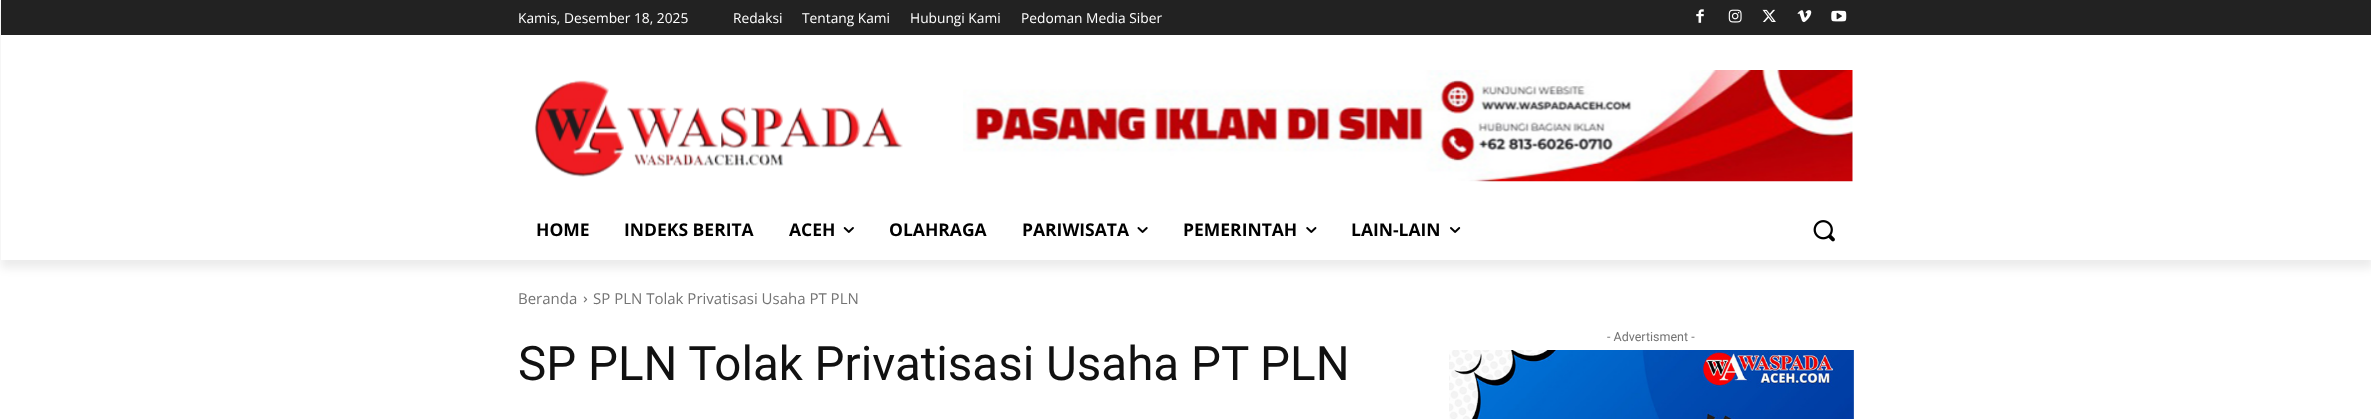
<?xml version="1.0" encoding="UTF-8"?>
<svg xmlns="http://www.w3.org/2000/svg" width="2371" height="419">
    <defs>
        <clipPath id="clip1"><path d="M 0 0 H 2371 V 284 H 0 Z M 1 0 H 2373 V 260 H 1 Z" clip-rule="evenodd"/></clipPath>
        <filter id="blur1" x="-50%" y="-200%" width="200%" height="500%"><feGaussianBlur stdDeviation="5"/></filter>
    </defs>
    <rect width="100%" height="100%" fill="#FFFFFF"/>
    <rect x="1" y="0" width="2370" height="35" fill="#222222"/>
    <image x="1696" y="9" width="8" height="14" href="img_01.png"/>
    <image x="1728" y="9" width="14" height="14" href="img_02.png"/>
    <image x="1762" y="9" width="14" height="13" href="img_03.png"/>
    <image x="1797" y="10" width="15" height="13" href="img_04.png"/>
    <image x="1831" y="10" width="16" height="12" href="img_05.png"/>
    <image x="534" y="80" width="369" height="97" href="img_06.png"/>
    <image x="963" y="70" width="890" height="112" href="img_07.png"/>
    <g clip-path="url(#clip1)">
        <rect x="1" y="8" width="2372" height="260" fill="#000000" fill-opacity="0.08" filter="url(#blur1)"/>
    </g>
    <text x="518" y="23" font-family="Open Sans" font-size="13.75" fill="#FFFFFF">Kamis, Desember 18, 2025</text>
    <text x="733" y="23" font-family="Open Sans" font-size="13.75" fill="#FFFFFF">Redaksi</text>
    <text x="802" y="23" font-family="Open Sans" font-size="13.75" fill="#FFFFFF">Tentang Kami</text>
    <text x="910" y="23" font-family="Open Sans" font-size="13.75" fill="#FFFFFF">Hubungi Kami</text>
    <text x="1021" y="23" font-family="Open Sans" font-size="13.75" fill="#FFFFFF">Pedoman Media Siber</text>
    <text x="536" y="236" font-family="Open Sans" font-size="17.5" font-weight="700" fill="#000000">HOME</text>
    <text x="624" y="236" font-family="Open Sans" font-size="17.5" font-weight="700" fill="#000000">INDEKS BERITA</text>
    <text x="789" y="236" font-family="Open Sans" font-size="17.5" font-weight="700" fill="#000000">ACEH</text>
    <image x="843" y="227" width="11" height="6" href="img_08.png"/>
    <text x="889" y="236" font-family="Open Sans" font-size="17.5" font-weight="700" fill="#000000">OLAHRAGA</text>
    <text x="1022" y="236" font-family="Open Sans" font-size="17.5" font-weight="700" fill="#000000">PARIWISATA</text>
    <image x="1137" y="227" width="11" height="6" href="img_09.png"/>
    <text x="1183" y="236" font-family="Open Sans" font-size="17.5" font-weight="700" fill="#000000">PEMERINTAH</text>
    <image x="1306" y="227" width="11" height="6" href="img_10.png"/>
    <text x="1351" y="236" font-family="Open Sans" font-size="17.5" font-weight="700" fill="#000000">LAIN-LAIN</text>
    <image x="1450" y="227" width="11" height="6" href="img_11.png"/>
    <image x="1813" y="220" width="22" height="22" href="img_12.png"/>
    <text x="518" y="304" font-family="Open Sans" font-size="15" fill="#747474">Beranda</text>
    <image x="583" y="296" width="5" height="7" href="img_13.png"/>
    <text x="593" y="304" font-family="Open Sans" font-size="15" fill="#747474">SP PLN Tolak Privatisasi Usaha PT PLN</text>
    <text x="1607" y="341" font-family="Roboto" font-size="12.5" fill="#747474">- Advertisment -</text>
    <image x="1449" y="350" width="405" height="69" href="img_14.png"/>
    <text x="518" y="380" font-family="Roboto" font-size="47.5" fill="#111111">SP PLN Tolak Privatisasi Usaha PT PLN</text>
</svg>
